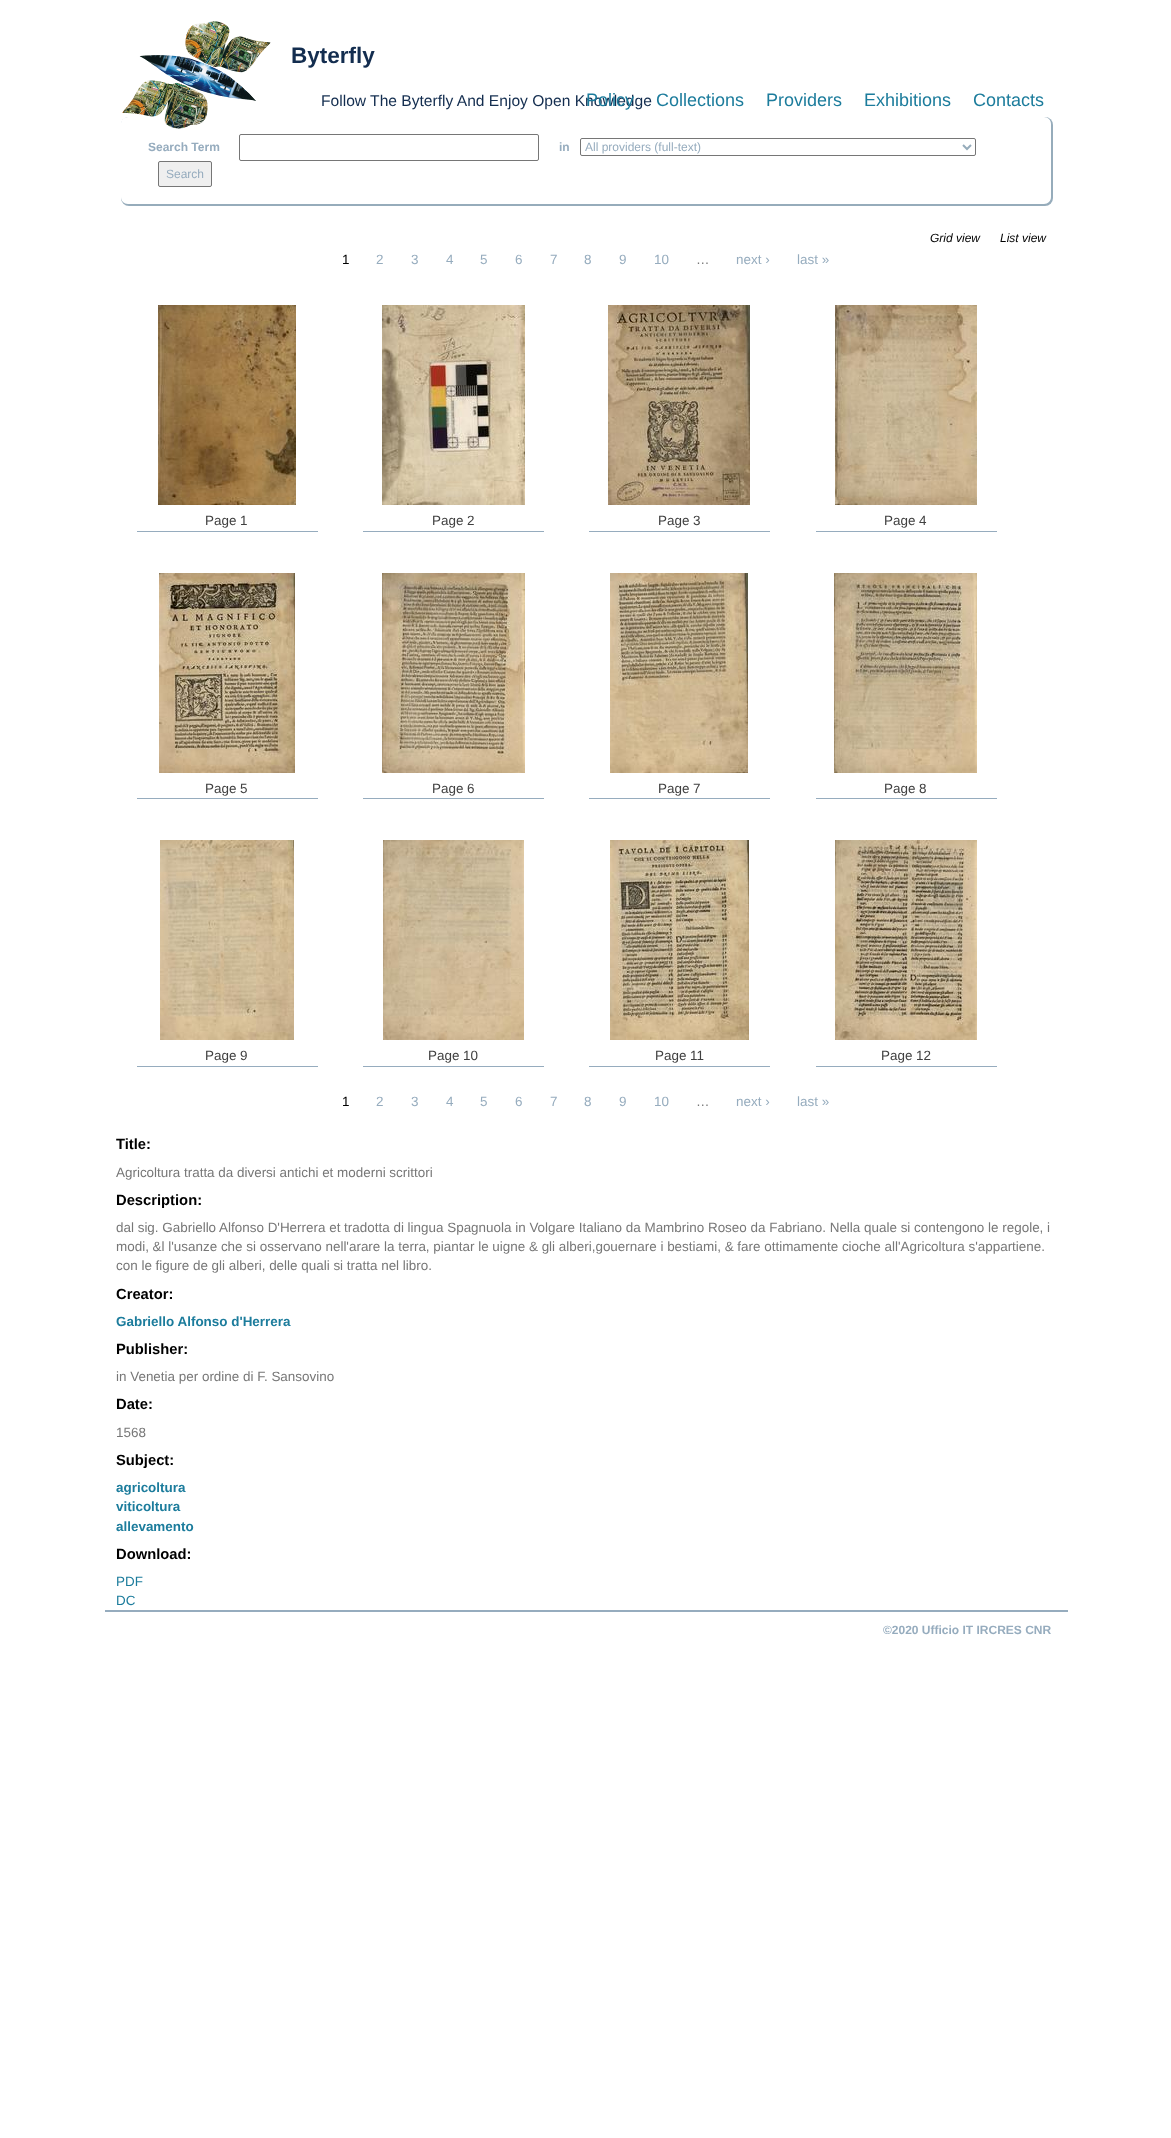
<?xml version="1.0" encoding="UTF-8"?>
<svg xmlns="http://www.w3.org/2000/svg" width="1171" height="2138">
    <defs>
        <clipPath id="clip1"><path d="M 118 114 H 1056 V 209 H 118 Z M 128 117 H 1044 C 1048 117 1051 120 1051 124 V 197 C 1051 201 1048 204 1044 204 H 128 C 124 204 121 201 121 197 V 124 C 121 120 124 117 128 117 Z" clip-rule="evenodd"/></clipPath>
        <filter id="blur1" x="-50%" y="-200%" width="200%" height="500%"><feGaussianBlur stdDeviation="0.5"/></filter>
    </defs>
    <rect width="100%" height="100%" fill="#FFFFFF"/>
    <image x="122" y="21" width="149" height="108" href="img_01.png"/>
    <text x="291" y="63" font-family="Liberation Sans" font-size="22.5" font-weight="700" fill="#132D4F">Byterfly</text>
    <text x="321" y="106" font-family="Liberation Sans" font-size="15.6" fill="#132D4F">Follow The Byterfly And Enjoy Open Knowledge</text>
    <text x="586" y="106" font-family="Liberation Sans" font-size="18" fill="#1C7C9C">Policy</text>
    <text x="656" y="106" font-family="Liberation Sans" font-size="18" fill="#1C7C9C">Collections</text>
    <text x="766" y="106" font-family="Liberation Sans" font-size="18" fill="#1C7C9C">Providers</text>
    <text x="864" y="106" font-family="Liberation Sans" font-size="18" fill="#1C7C9C">Exhibitions</text>
    <text x="973" y="106" font-family="Liberation Sans" font-size="18" fill="#1C7C9C">Contacts</text>
    <g clip-path="url(#clip1)">
        <rect x="121" y="117" width="932" height="89" rx="8" fill="#96ACBB" filter="url(#blur1)"/>
    </g>
    <text x="148" y="151" font-family="Liberation Sans" font-size="12" font-weight="700" fill="#96ACBE">Search Term</text>
    <rect x="239.5" y="134.5" width="299" height="26" rx="1.5" fill="none" stroke="#767676"/>
    <text x="559" y="151" font-family="Liberation Sans" font-size="12" font-weight="700" fill="#96ACBE">in</text>
    <rect x="580.5" y="138.5" width="395" height="17" rx="1.5" fill="none" stroke="#767676"/>
    <path d="M 963 145 L 967 149 L 971 145" fill="none" stroke="#96ACBB" stroke-width="2"/>
    <text x="585" y="151" font-family="Liberation Sans" font-size="12" fill="#96ACBE">All providers (full-text)</text>
    <rect x="158.5" y="161.5" width="53" height="25" rx="1.5" fill="#EFEFEF" stroke="#767676"/>
    <text x="166" y="178" font-family="Liberation Sans" font-size="12" fill="#96ACBE">Search</text>
    <text x="930" y="242" font-family="Liberation Sans" font-size="12" font-style="italic" fill="#000000">Grid view</text>
    <text x="1000" y="242" font-family="Liberation Sans" font-size="12" font-style="italic" fill="#000000">List view</text>
    <text x="342" y="264" font-family="Liberation Sans" font-size="13.45" fill="#000000">1</text>
    <text x="376" y="264" font-family="Liberation Sans" font-size="13.45" fill="#96ACBE">2</text>
    <text x="411" y="264" font-family="Liberation Sans" font-size="13.45" fill="#96ACBE">3</text>
    <text x="446" y="264" font-family="Liberation Sans" font-size="13.45" fill="#96ACBE">4</text>
    <text x="480" y="264" font-family="Liberation Sans" font-size="13.45" fill="#96ACBE">5</text>
    <text x="515" y="264" font-family="Liberation Sans" font-size="13.45" fill="#96ACBE">6</text>
    <text x="550" y="264" font-family="Liberation Sans" font-size="13.45" fill="#96ACBE">7</text>
    <text x="584" y="264" font-family="Liberation Sans" font-size="13.45" fill="#96ACBE">8</text>
    <text x="619" y="264" font-family="Liberation Sans" font-size="13.45" fill="#96ACBE">9</text>
    <text x="654" y="264" font-family="Liberation Sans" font-size="13.45" fill="#96ACBE">10</text>
    <text x="696" y="264" font-family="Liberation Sans" font-size="13.45" fill="#777777">…</text>
    <text x="736" y="264" font-family="Liberation Sans" font-size="13.45" fill="#96ACBE">next ›</text>
    <text x="797" y="264" font-family="Liberation Sans" font-size="13.45" fill="#96ACBE">last »</text>
    <image x="158" y="305" width="138" height="200" href="img_02.png"/>
    <rect x="137" y="531" width="181" height="1" fill="#96ACBE"/>
    <text x="205" y="525" font-family="Liberation Sans" font-size="13.45" fill="#404040">Page 1</text>
    <image x="382" y="305" width="143" height="200" href="img_03.png"/>
    <rect x="363" y="531" width="181" height="1" fill="#96ACBE"/>
    <text x="432" y="525" font-family="Liberation Sans" font-size="13.45" fill="#404040">Page 2</text>
    <image x="608" y="305" width="142" height="200" href="img_04.png"/>
    <rect x="589" y="531" width="181" height="1" fill="#96ACBE"/>
    <text x="658" y="525" font-family="Liberation Sans" font-size="13.45" fill="#404040">Page 3</text>
    <image x="835" y="305" width="142" height="200" href="img_05.png"/>
    <rect x="816" y="531" width="181" height="1" fill="#96ACBE"/>
    <text x="884" y="525" font-family="Liberation Sans" font-size="13.45" fill="#404040">Page 4</text>
    <image x="159" y="573" width="136" height="200" href="img_06.png"/>
    <rect x="137" y="798" width="181" height="1" fill="#96ACBE"/>
    <text x="205" y="793" font-family="Liberation Sans" font-size="13.45" fill="#404040">Page 5</text>
    <image x="382" y="573" width="143" height="200" href="img_07.png"/>
    <rect x="363" y="798" width="181" height="1" fill="#96ACBE"/>
    <text x="432" y="793" font-family="Liberation Sans" font-size="13.45" fill="#404040">Page 6</text>
    <image x="610" y="573" width="138" height="200" href="img_08.png"/>
    <rect x="589" y="798" width="181" height="1" fill="#96ACBE"/>
    <text x="658" y="793" font-family="Liberation Sans" font-size="13.45" fill="#404040">Page 7</text>
    <image x="834" y="573" width="143" height="200" href="img_09.png"/>
    <rect x="816" y="798" width="181" height="1" fill="#96ACBE"/>
    <text x="884" y="793" font-family="Liberation Sans" font-size="13.45" fill="#404040">Page 8</text>
    <image x="160" y="840" width="134" height="200" href="img_10.png"/>
    <rect x="137" y="1066" width="181" height="1" fill="#96ACBE"/>
    <text x="205" y="1060" font-family="Liberation Sans" font-size="13.45" fill="#404040">Page 9</text>
    <image x="383" y="840" width="141" height="200" href="img_11.png"/>
    <rect x="363" y="1066" width="181" height="1" fill="#96ACBE"/>
    <text x="428" y="1060" font-family="Liberation Sans" font-size="13.45" fill="#404040">Page 10</text>
    <image x="610" y="840" width="139" height="200" href="img_12.png"/>
    <rect x="589" y="1066" width="181" height="1" fill="#96ACBE"/>
    <text x="655" y="1060" font-family="Liberation Sans" font-size="13.45" fill="#404040">Page 11</text>
    <image x="835" y="840" width="142" height="200" href="img_13.png"/>
    <rect x="816" y="1066" width="181" height="1" fill="#96ACBE"/>
    <text x="881" y="1060" font-family="Liberation Sans" font-size="13.45" fill="#404040">Page 12</text>
    <text x="342" y="1106" font-family="Liberation Sans" font-size="13.45" fill="#000000">1</text>
    <text x="376" y="1106" font-family="Liberation Sans" font-size="13.45" fill="#96ACBE">2</text>
    <text x="411" y="1106" font-family="Liberation Sans" font-size="13.45" fill="#96ACBE">3</text>
    <text x="446" y="1106" font-family="Liberation Sans" font-size="13.45" fill="#96ACBE">4</text>
    <text x="480" y="1106" font-family="Liberation Sans" font-size="13.45" fill="#96ACBE">5</text>
    <text x="515" y="1106" font-family="Liberation Sans" font-size="13.45" fill="#96ACBE">6</text>
    <text x="550" y="1106" font-family="Liberation Sans" font-size="13.45" fill="#96ACBE">7</text>
    <text x="584" y="1106" font-family="Liberation Sans" font-size="13.45" fill="#96ACBE">8</text>
    <text x="619" y="1106" font-family="Liberation Sans" font-size="13.45" fill="#96ACBE">9</text>
    <text x="654" y="1106" font-family="Liberation Sans" font-size="13.45" fill="#96ACBE">10</text>
    <text x="696" y="1106" font-family="Liberation Sans" font-size="13.45" fill="#777777">…</text>
    <text x="736" y="1106" font-family="Liberation Sans" font-size="13.45" fill="#96ACBE">next ›</text>
    <text x="797" y="1106" font-family="Liberation Sans" font-size="13.45" fill="#96ACBE">last »</text>
    <text x="116" y="1149" font-family="Liberation Sans" font-size="14.75" font-weight="700" fill="#000000">Title:</text>
    <text x="116" y="1177" font-family="Liberation Sans" font-size="13.45" fill="#777777">Agricoltura tratta da diversi antichi et moderni scrittori</text>
    <text x="116" y="1205" font-family="Liberation Sans" font-size="14.75" font-weight="700" fill="#000000">Description:</text>
    <text font-family="Liberation Sans" font-size="13.45" fill="#777777">
        <tspan x="116" y="1232">dal sig. Gabriello Alfonso D'Herrera et tradotta di lingua Spagnuola in Volgare Italiano da Mambrino Roseo da Fabriano. Nella quale si contengono le regole, i</tspan>
        <tspan x="116" y="1251">modi, &amp;l l'usanze che si osservano nell'arare la terra, piantar le uigne &amp; gli alberi,gouernare i bestiami, &amp; fare ottimamente cioche all'Agricoltura s'appartiene.</tspan>
        <tspan x="116" y="1270">con le figure de gli alberi, delle quali si tratta nel libro.</tspan>
    </text>
    <text x="116" y="1299" font-family="Liberation Sans" font-size="14.75" font-weight="700" fill="#000000">Creator:</text>
    <text x="116" y="1326" font-family="Liberation Sans" font-size="13.45" font-weight="700" fill="#1C7C9C">Gabriello Alfonso d'Herrera</text>
    <text x="116" y="1354" font-family="Liberation Sans" font-size="14.75" font-weight="700" fill="#000000">Publisher:</text>
    <text x="116" y="1381" font-family="Liberation Sans" font-size="13.45" fill="#777777">in Venetia per ordine di F. Sansovino</text>
    <text x="116" y="1409" font-family="Liberation Sans" font-size="14.75" font-weight="700" fill="#000000">Date:</text>
    <text x="116" y="1437" font-family="Liberation Sans" font-size="13.45" fill="#777777">1568</text>
    <text x="116" y="1465" font-family="Liberation Sans" font-size="14.75" font-weight="700" fill="#000000">Subject:</text>
    <text font-family="Liberation Sans" font-size="13.45" font-weight="700" fill="#1C7C9C">
        <tspan x="116" y="1492">agricoltura</tspan>
        <tspan x="116" y="1511">viticoltura</tspan>
        <tspan x="116" y="1531">allevamento</tspan>
    </text>
    <text x="116" y="1559" font-family="Liberation Sans" font-size="14.75" font-weight="700" fill="#000000">Download:</text>
    <text font-family="Liberation Sans" font-size="13.45" fill="#1C7C9C">
        <tspan x="116" y="1586">PDF</tspan>
        <tspan x="116" y="1605">DC</tspan>
    </text>
    <rect x="105" y="1610" width="963" height="2" fill="#96ACBE"/>
    <text x="883" y="1634" font-family="Liberation Sans" font-size="12" font-weight="700" fill="#96ACBE">©2020 Ufficio IT IRCRES CNR</text>
</svg>
